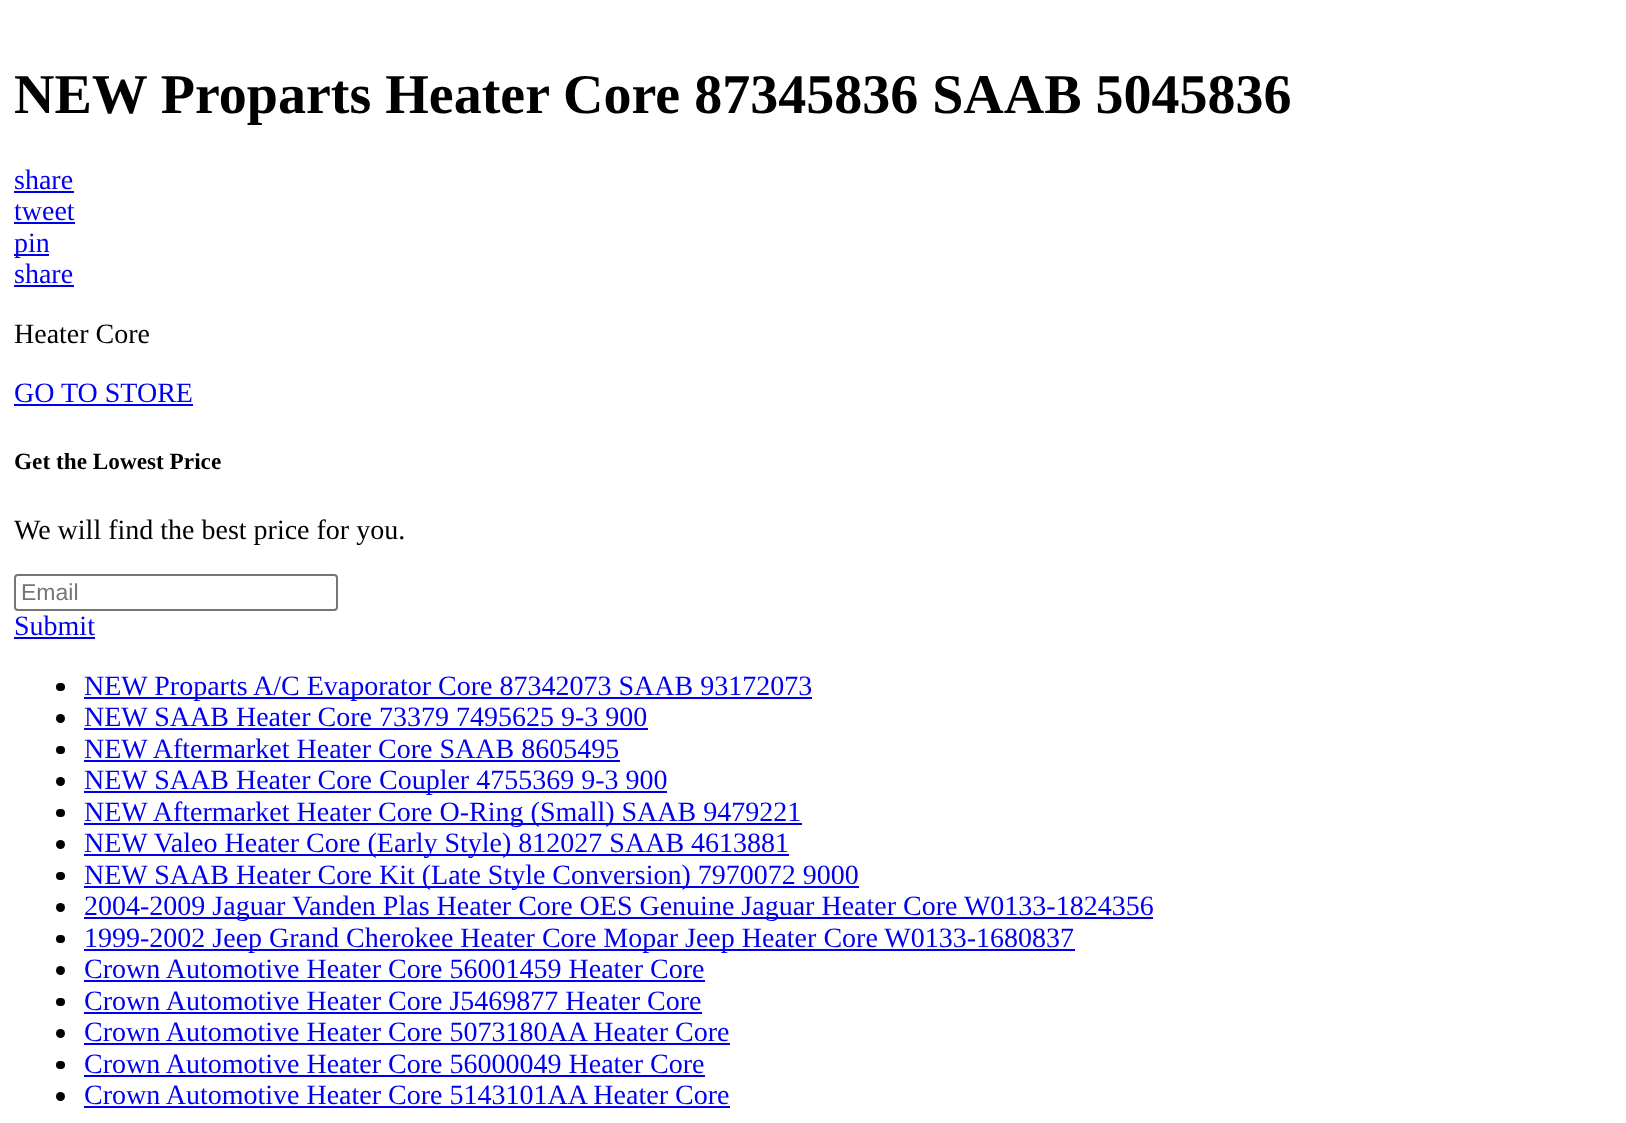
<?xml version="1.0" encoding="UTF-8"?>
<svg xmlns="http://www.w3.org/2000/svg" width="1626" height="1123">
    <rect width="100%" height="100%" fill="#FFFFFF"/>
    <text x="14" y="113" font-family="Liberation Serif" font-size="56" font-weight="700" fill="#000000">NEW Proparts Heater Core 87345836 SAAB 5045836</text>
    <text x="14" y="189" font-family="Liberation Serif" font-size="28" fill="#0000EE">share</text>
    <rect x="14" y="191" width="60" height="2" fill="#0000EE"/>
    <text x="14" y="220" font-family="Liberation Serif" font-size="28" fill="#0000EE">tweet</text>
    <rect x="14" y="222" width="61" height="2" fill="#0000EE"/>
    <rect x="14" y="254" width="35" height="2" fill="#0000EE"/>
    <text font-family="Liberation Serif" font-size="28" fill="#0000EE">
        <tspan x="14" y="252">pin</tspan>
        <tspan x="14" y="283">share</tspan>
    </text>
    <rect x="14" y="285" width="60" height="2" fill="#0000EE"/>
    <text x="14" y="343" font-family="Liberation Serif" font-size="28" fill="#000000">Heater Core</text>
    <text x="14" y="402" font-family="Liberation Serif" font-size="28" fill="#0000EE">GO TO STORE</text>
    <rect x="14" y="404" width="179" height="2" fill="#0000EE"/>
    <text x="14" y="469" font-family="Liberation Serif" font-size="23.25" font-weight="700" fill="#000000">Get the Lowest Price</text>
    <text x="14" y="539" font-family="Liberation Serif" font-size="28" fill="#000000">We will find the best price for you.</text>
    <rect x="15" y="575" width="322" height="35" rx="3" fill="none" stroke="#767676" stroke-width="2"/>
    <text x="21" y="600" font-family="Liberation Sans" font-size="23" fill="#757575">Email</text>
    <text x="14" y="635" font-family="Liberation Serif" font-size="28" fill="#0000EE">Submit</text>
    <rect x="14" y="637" width="81" height="2" fill="#0000EE"/>
    <rect x="56" y="683" width="9" height="8" rx="4" fill="#000000"/>
    <rect x="84" y="697" width="728" height="2" fill="#0000EE"/>
    <text x="84" y="695" font-family="Liberation Serif" font-size="28" fill="#0000EE">NEW Proparts A/C Evaporator Core 87342073 SAAB 93172073</text>
    <circle cx="60.5" cy="718.5" r="4.5" fill="#000000"/>
    <text x="84" y="726" font-family="Liberation Serif" font-size="28" fill="#0000EE">NEW SAAB Heater Core 73379 7495625 9-3 900</text>
    <rect x="84" y="728" width="564" height="2" fill="#0000EE"/>
    <rect x="56" y="746" width="9" height="8" rx="4" fill="#000000"/>
    <text x="84" y="758" font-family="Liberation Serif" font-size="28" fill="#0000EE">NEW Aftermarket Heater Core SAAB 8605495</text>
    <rect x="84" y="760" width="536" height="2" fill="#0000EE"/>
    <circle cx="60.5" cy="781.5" r="4.5" fill="#000000"/>
    <rect x="84" y="791" width="583" height="2" fill="#0000EE"/>
    <text x="84" y="789" font-family="Liberation Serif" font-size="28" fill="#0000EE">NEW SAAB Heater Core Coupler 4755369 9-3 900</text>
    <rect x="56" y="809" width="9" height="8" rx="4" fill="#000000"/>
    <rect x="84" y="823" width="718" height="2" fill="#0000EE"/>
    <text x="84" y="821" font-family="Liberation Serif" font-size="28" fill="#0000EE">NEW Aftermarket Heater Core O-Ring (Small) SAAB 9479221</text>
    <circle cx="60.5" cy="844.5" r="4.5" fill="#000000"/>
    <rect x="84" y="854" width="705" height="2" fill="#0000EE"/>
    <text x="84" y="852" font-family="Liberation Serif" font-size="28" fill="#0000EE">NEW Valeo Heater Core (Early Style) 812027 SAAB 4613881</text>
    <rect x="56" y="872" width="9" height="8" rx="4" fill="#000000"/>
    <rect x="84" y="886" width="775" height="2" fill="#0000EE"/>
    <text x="84" y="884" font-family="Liberation Serif" font-size="28" fill="#0000EE">NEW SAAB Heater Core Kit (Late Style Conversion) 7970072 9000</text>
    <circle cx="60.5" cy="907.5" r="4.5" fill="#000000"/>
    <rect x="84" y="917" width="1069" height="2" fill="#0000EE"/>
    <text x="84" y="915" font-family="Liberation Serif" font-size="28" fill="#0000EE">2004-2009 Jaguar Vanden Plas Heater Core OES Genuine Jaguar Heater Core W0133-1824356</text>
    <rect x="56" y="935" width="9" height="8" rx="4" fill="#000000"/>
    <rect x="84" y="949" width="991" height="2" fill="#0000EE"/>
    <text x="84" y="947" font-family="Liberation Serif" font-size="28" fill="#0000EE">1999-2002 Jeep Grand Cherokee Heater Core Mopar Jeep Heater Core W0133-1680837</text>
    <circle cx="60.5" cy="970.5" r="4.5" fill="#000000"/>
    <text x="84" y="978" font-family="Liberation Serif" font-size="28" fill="#0000EE">Crown Automotive Heater Core 56001459 Heater Core</text>
    <rect x="84" y="980" width="621" height="2" fill="#0000EE"/>
    <rect x="56" y="998" width="9" height="8" rx="4" fill="#000000"/>
    <text x="84" y="1010" font-family="Liberation Serif" font-size="28" fill="#0000EE">Crown Automotive Heater Core J5469877 Heater Core</text>
    <rect x="84" y="1012" width="618" height="2" fill="#0000EE"/>
    <circle cx="60.5" cy="1033.5" r="4.5" fill="#000000"/>
    <text x="84" y="1041" font-family="Liberation Serif" font-size="28" fill="#0000EE">Crown Automotive Heater Core 5073180AA Heater Core</text>
    <rect x="84" y="1043" width="646" height="2" fill="#0000EE"/>
    <rect x="56" y="1061" width="9" height="8" rx="4" fill="#000000"/>
    <text x="84" y="1073" font-family="Liberation Serif" font-size="28" fill="#0000EE">Crown Automotive Heater Core 56000049 Heater Core</text>
    <rect x="84" y="1075" width="621" height="2" fill="#0000EE"/>
    <circle cx="60.5" cy="1096.5" r="4.5" fill="#000000"/>
    <text x="84" y="1104" font-family="Liberation Serif" font-size="28" fill="#0000EE">Crown Automotive Heater Core 5143101AA Heater Core</text>
    <rect x="84" y="1106" width="646" height="2" fill="#0000EE"/>
</svg>
